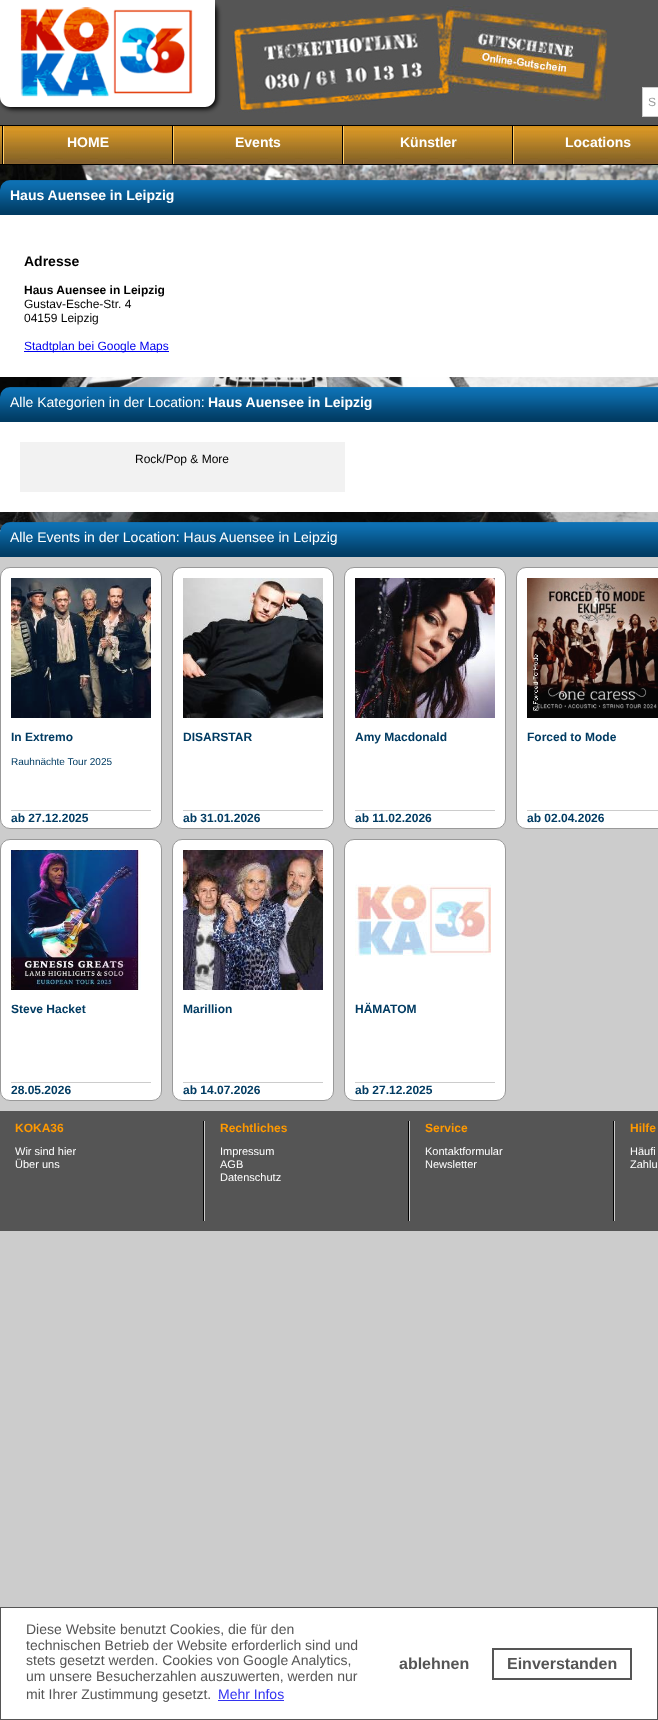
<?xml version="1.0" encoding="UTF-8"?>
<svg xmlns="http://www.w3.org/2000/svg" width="658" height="1720">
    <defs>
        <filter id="blur1" x="-50%" y="-200%" width="200%" height="500%"><feGaussianBlur stdDeviation="2.5"/></filter>
    </defs>
    <rect width="100%" height="100%" fill="#CCCCCC"/>
    <image x="0" y="165" width="658" height="366" href="img_01.png"/>
    <rect x="0" y="0" width="658" height="125" fill="#555555"/>
    <rect x="2" y="2" width="215" height="107" rx="10" fill="#000000" filter="url(#blur1)"/>
    <path d="M 0 0 H 215 V 97 C 215 102.5 210.5 107 205 107 H 10 C 4.5 107 0 102.5 0 97 Z" fill="#FFFFFF"/>
    <image x="20" y="7" width="173" height="90" href="img_02.png"/>
    <image x="233" y="11" width="214" height="102" href="img_03.png"/>
    <image x="447" y="5" width="160" height="96" href="img_04.png"/>
    <rect x="643" y="88" width="15" height="28" fill="#FFFFFF"/>
    <path d="M 642 87 H 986 L 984 88 H 643 Z M 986 117 H 642 L 643 116 H 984 Z" fill="#CCCCCC"/>
    <rect x="642" y="87" width="1" height="30" fill="#CCCCCC"/>
    <text x="648" y="106" font-family="Liberation Sans" font-size="12" fill="#999999">S</text>
    <image x="0" y="126" width="2" height="38" href="img_05.png"/>
    <rect x="0" y="125" width="658" height="1" fill="#000000"/>
    <rect x="0" y="164" width="658" height="1" fill="#000000"/>
    <rect x="2" y="126" width="1" height="38" fill="#000000"/>
    <image x="4" y="126" width="168" height="38" href="img_06.png"/>
    <rect x="172" y="126" width="1" height="38" fill="#000000"/>
    <rect x="3" y="126" width="1" height="38" fill="#FFCC66"/>
    <text x="67" y="147" font-family="Liberation Sans" font-size="14" font-weight="700" fill="#FFFFFF">HOME</text>
    <image x="174" y="126" width="168" height="38" href="img_06.png"/>
    <rect x="342" y="126" width="1" height="38" fill="#000000"/>
    <rect x="173" y="126" width="1" height="38" fill="#FFCC66"/>
    <text x="235" y="147" font-family="Liberation Sans" font-size="14" font-weight="700" fill="#FFFFFF">Events</text>
    <image x="344" y="126" width="168" height="38" href="img_06.png"/>
    <rect x="512" y="126" width="1" height="38" fill="#000000"/>
    <rect x="343" y="126" width="1" height="38" fill="#FFCC66"/>
    <text x="400" y="147" font-family="Liberation Sans" font-size="14" font-weight="700" fill="#FFFFFF">Künstler</text>
    <image x="514" y="126" width="144" height="38" href="img_07.png"/>
    <rect x="513" y="126" width="1" height="38" fill="#FFCC66"/>
    <text x="565" y="147" font-family="Liberation Sans" font-size="14" font-weight="700" fill="#FFFFFF">Locations</text>
    <image x="0" y="180" width="658" height="35" href="img_08.png"/>
    <text x="10" y="200" font-family="Liberation Sans" font-size="14" font-weight="700" fill="#FFFFFF">Haus Auensee in Leipzig</text>
    <rect x="0" y="215" width="658" height="162" fill="#FFFFFF"/>
    <text x="24" y="266" font-family="Liberation Sans" font-size="14" font-weight="700" fill="#000000">Adresse</text>
    <text x="24" y="294" font-family="Liberation Sans" font-size="12" font-weight="700" fill="#000000">Haus Auensee in Leipzig</text>
    <text font-family="Liberation Sans" font-size="12" fill="#000000">
        <tspan x="24" y="308">Gustav-Esche-Str. 4</tspan>
        <tspan x="24" y="322">04159 Leipzig</tspan>
    </text>
    <rect x="24" y="351" width="145" height="1" fill="#0000EE"/>
    <text x="24" y="350" font-family="Liberation Sans" font-size="12" fill="#0000EE">Stadtplan bei Google Maps</text>
    <image x="0" y="387" width="658" height="35" href="img_09.png"/>
    <text x="10" y="407" font-family="Liberation Sans" font-size="14" fill="#FFFFFF">Alle Kategorien in der Location:</text>
    <text x="208" y="407" font-family="Liberation Sans" font-size="14" font-weight="700" fill="#FFFFFF">Haus Auensee in Leipzig</text>
    <rect x="0" y="422" width="658" height="90" fill="#FFFFFF"/>
    <rect x="20" y="442" width="325" height="50" fill="#F2F2F2"/>
    <text x="135" y="463" font-family="Liberation Sans" font-size="12" fill="#000000">Rock/Pop &amp; More</text>
    <image x="0" y="522" width="658" height="35" href="img_10.png"/>
    <text x="10" y="542" font-family="Liberation Sans" font-size="14" fill="#FFFFFF">Alle Events in der Location: Haus Auensee in Leipzig</text>
    <rect x="0.5" y="567.5" width="161" height="261" rx="9.5" fill="#FFFFFF" stroke="#999999"/>
    <image x="11" y="578" width="140" height="140" href="img_11.png"/>
    <rect x="11" y="810" width="140" height="1" fill="#CCCCCC"/>
    <text x="11" y="741" font-family="Liberation Sans" font-size="12" font-weight="700" fill="#013B62">In Extremo</text>
    <text x="11" y="765" font-family="Liberation Sans" font-size="10" fill="#013B62">Rauhnächte Tour 2025</text>
    <text x="11" y="822" font-family="Liberation Sans" font-size="12" font-weight="700" fill="#013B62">ab 27.12.2025</text>
    <rect x="172.5" y="567.5" width="161" height="261" rx="9.5" fill="#FFFFFF" stroke="#999999"/>
    <image x="183" y="578" width="140" height="140" href="img_12.png"/>
    <rect x="183" y="810" width="140" height="1" fill="#CCCCCC"/>
    <text x="183" y="741" font-family="Liberation Sans" font-size="12" font-weight="700" fill="#013B62">DISARSTAR</text>
    <text x="183" y="822" font-family="Liberation Sans" font-size="12" font-weight="700" fill="#013B62">ab 31.01.2026</text>
    <rect x="344.5" y="567.5" width="161" height="261" rx="9.5" fill="#FFFFFF" stroke="#999999"/>
    <image x="355" y="578" width="140" height="140" href="img_13.png"/>
    <rect x="355" y="810" width="140" height="1" fill="#CCCCCC"/>
    <text x="355" y="741" font-family="Liberation Sans" font-size="12" font-weight="700" fill="#013B62">Amy Macdonald</text>
    <text x="355" y="822" font-family="Liberation Sans" font-size="12" font-weight="700" fill="#013B62">ab 11.02.2026</text>
    <rect x="516.5" y="567.5" width="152" height="261" rx="9.5" fill="#FFFFFF" stroke="#999999"/>
    <image x="527" y="578" width="131" height="140" href="img_14.png"/>
    <rect x="527" y="810" width="131" height="1" fill="#CCCCCC"/>
    <text x="527" y="741" font-family="Liberation Sans" font-size="12" font-weight="700" fill="#013B62">Forced to Mode</text>
    <text x="527" y="822" font-family="Liberation Sans" font-size="12" font-weight="700" fill="#013B62">ab 02.04.2026</text>
    <rect x="0.5" y="839.5" width="161" height="261" rx="9.5" fill="#FFFFFF" stroke="#999999"/>
    <image x="11" y="850" width="130" height="140" href="img_15.png"/>
    <rect x="11" y="1082" width="140" height="1" fill="#CCCCCC"/>
    <text x="11" y="1013" font-family="Liberation Sans" font-size="12" font-weight="700" fill="#013B62">Steve Hacket</text>
    <text x="11" y="1094" font-family="Liberation Sans" font-size="12" font-weight="700" fill="#013B62">28.05.2026</text>
    <rect x="172.5" y="839.5" width="161" height="261" rx="9.5" fill="#FFFFFF" stroke="#999999"/>
    <image x="183" y="850" width="140" height="140" href="img_16.png"/>
    <rect x="183" y="1082" width="140" height="1" fill="#CCCCCC"/>
    <text x="183" y="1013" font-family="Liberation Sans" font-size="12" font-weight="700" fill="#013B62">Marillion</text>
    <text x="183" y="1094" font-family="Liberation Sans" font-size="12" font-weight="700" fill="#013B62">ab 14.07.2026</text>
    <rect x="344.5" y="839.5" width="161" height="261" rx="9.5" fill="#FFFFFF" stroke="#999999"/>
    <image x="355" y="884" width="136" height="72" href="img_17.png"/>
    <rect x="355" y="1082" width="140" height="1" fill="#CCCCCC"/>
    <text x="355" y="1013" font-family="Liberation Sans" font-size="12" font-weight="700" fill="#013B62">HÄMATOM</text>
    <text x="355" y="1094" font-family="Liberation Sans" font-size="12" font-weight="700" fill="#013B62">ab 27.12.2025</text>
    <rect x="0" y="1111" width="658" height="120" fill="#555555"/>
    <rect x="203" y="1121" width="1" height="100" fill="#000000"/>
    <text x="15" y="1132" font-family="Liberation Sans" font-size="12" font-weight="700" fill="#FF9900">KOKA36</text>
    <text font-family="Liberation Sans" font-size="11" fill="#FFFFFF">
        <tspan x="15" y="1155">Wir sind hier</tspan>
        <tspan x="15" y="1168">Über uns</tspan>
    </text>
    <rect x="408" y="1121" width="1" height="100" fill="#000000"/>
    <rect x="204" y="1121" width="1" height="100" fill="#CCCCCC"/>
    <text x="220" y="1132" font-family="Liberation Sans" font-size="12" font-weight="700" fill="#FF9900">Rechtliches</text>
    <text font-family="Liberation Sans" font-size="11" fill="#FFFFFF">
        <tspan x="220" y="1155">Impressum</tspan>
        <tspan x="220" y="1168">AGB</tspan>
        <tspan x="220" y="1181">Datenschutz</tspan>
    </text>
    <rect x="613" y="1121" width="1" height="100" fill="#000000"/>
    <rect x="409" y="1121" width="1" height="100" fill="#CCCCCC"/>
    <text x="425" y="1132" font-family="Liberation Sans" font-size="12" font-weight="700" fill="#FF9900">Service</text>
    <text font-family="Liberation Sans" font-size="11" fill="#FFFFFF">
        <tspan x="425" y="1155">Kontaktformular</tspan>
        <tspan x="425" y="1168">Newsletter</tspan>
    </text>
    <rect x="614" y="1121" width="1" height="100" fill="#CCCCCC"/>
    <text x="630" y="1132" font-family="Liberation Sans" font-size="12" font-weight="700" fill="#FF9900">Hilfe</text>
    <text font-family="Liberation Sans" font-size="11" fill="#FFFFFF">
        <tspan x="630" y="1155">Häufi</tspan>
        <tspan x="630" y="1168">Zahlu</tspan>
    </text>
    <rect x="0.5" y="1607.5" width="657" height="112" fill="#FFFFFF" stroke="#555555"/>
    <text font-family="Liberation Sans" font-size="14" fill="#555555">
        <tspan x="26" y="1634">Diese Website benutzt Cookies, die für den</tspan>
        <tspan x="26" y="1650">technischen Betrieb der Website erforderlich sind und</tspan>
        <tspan x="26" y="1665">stets gesetzt werden. Cookies von Google Analytics,</tspan>
        <tspan x="26" y="1681">um unsere Besucherzahlen auszuwerten, werden nur</tspan>
        <tspan x="26" y="1699">mit Ihrer Zustimmung gesetzt.</tspan>
    </text>
    <text x="218" y="1699" font-family="Liberation Sans" font-size="14" fill="#3333F1">Mehr Infos</text>
    <rect x="218" y="1700" width="66" height="1" fill="#3333F1"/>
    <text x="399" y="1669" font-family="Liberation Sans" font-size="16" font-weight="700" fill="#555555">ablehnen</text>
    <rect x="493" y="1649" width="138" height="30" fill="none" stroke="#555555" stroke-width="2"/>
    <text x="507" y="1669" font-family="Liberation Sans" font-size="16" font-weight="700" fill="#555555">Einverstanden</text>
</svg>
